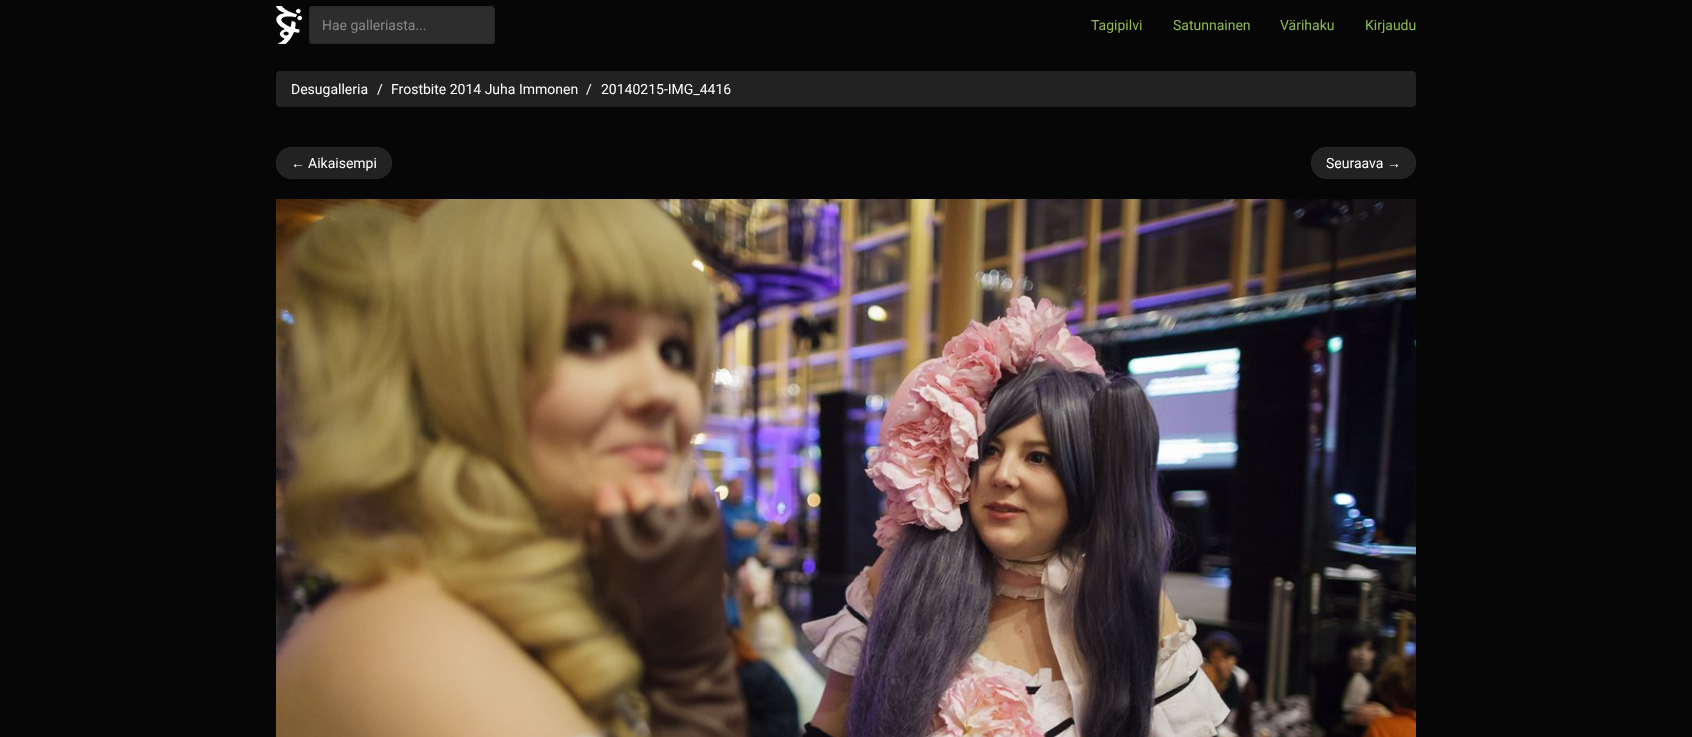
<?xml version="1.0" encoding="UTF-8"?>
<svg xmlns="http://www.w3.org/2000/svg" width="1692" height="737">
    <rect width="100%" height="100%" fill="#060606"/>
    <image x="276" y="6" width="26" height="38" href="img_01.png"/>
    <rect x="309" y="6" width="186" height="38" rx="4" fill="#2D2D2D"/>
    <path d="M 313 8 H 492 L 493 9 L 494 11 C 494 9 493 7 491 7 H 312 C 310 8 310 9 310 11 C 310 9 311 8 313 8 Z" fill="#2A2A2A"/>
    <rect x="309.5" y="6.5" width="185" height="37" rx="3.5" fill="none" stroke="#282828"/>
    <text x="322" y="30" font-family="Roboto" font-size="14" fill="#888888">Hae galleriasta...</text>
    <text x="1091" y="30" font-family="Roboto" font-size="14" fill="#8FBA58">Tagipilvi</text>
    <text x="1173" y="30" font-family="Roboto" font-size="14" fill="#8FBA58">Satunnainen</text>
    <text x="1280" y="30" font-family="Roboto" font-size="14" fill="#8FBA58">Värihaku</text>
    <text x="1365" y="30" font-family="Roboto" font-size="14" fill="#8FBA58">Kirjaudu</text>
    <rect x="276" y="71" width="1140" height="36" rx="4" fill="#222222"/>
    <text x="291" y="94" font-family="Roboto" font-size="14" fill="#FFFFFF">Desugalleria</text>
    <text x="377" y="94" font-family="Roboto" font-size="14" fill="#FFFFFF">/</text>
    <text x="391" y="94" font-family="Roboto" font-size="14" fill="#FFFFFF">Frostbite 2014 Juha Immonen</text>
    <text x="586" y="94" font-family="Roboto" font-size="14" fill="#FFFFFF">/</text>
    <text x="601" y="94" font-family="Roboto" font-size="14" fill="#FFFFFF">20140215-IMG_4416</text>
    <rect x="276.5" y="147.5" width="115" height="31" rx="14.5" fill="#222222" stroke="#282828"/>
    <text x="291" y="168" font-family="Liberation Sans" font-size="14" fill="#FFFFFF">←</text>
    <text x="308" y="168" font-family="Roboto" font-size="14" fill="#FFFFFF">Aikaisempi</text>
    <rect x="1311.5" y="147.5" width="104" height="31" rx="14.5" fill="#222222" stroke="#282828"/>
    <text x="1326" y="168" font-family="Roboto" font-size="14" fill="#FFFFFF">Seuraava</text>
    <text x="1387" y="168" font-family="Liberation Sans" font-size="14" fill="#FFFFFF">→</text>
    <image x="276" y="199" width="1140" height="538" href="img_02.png"/>
</svg>
